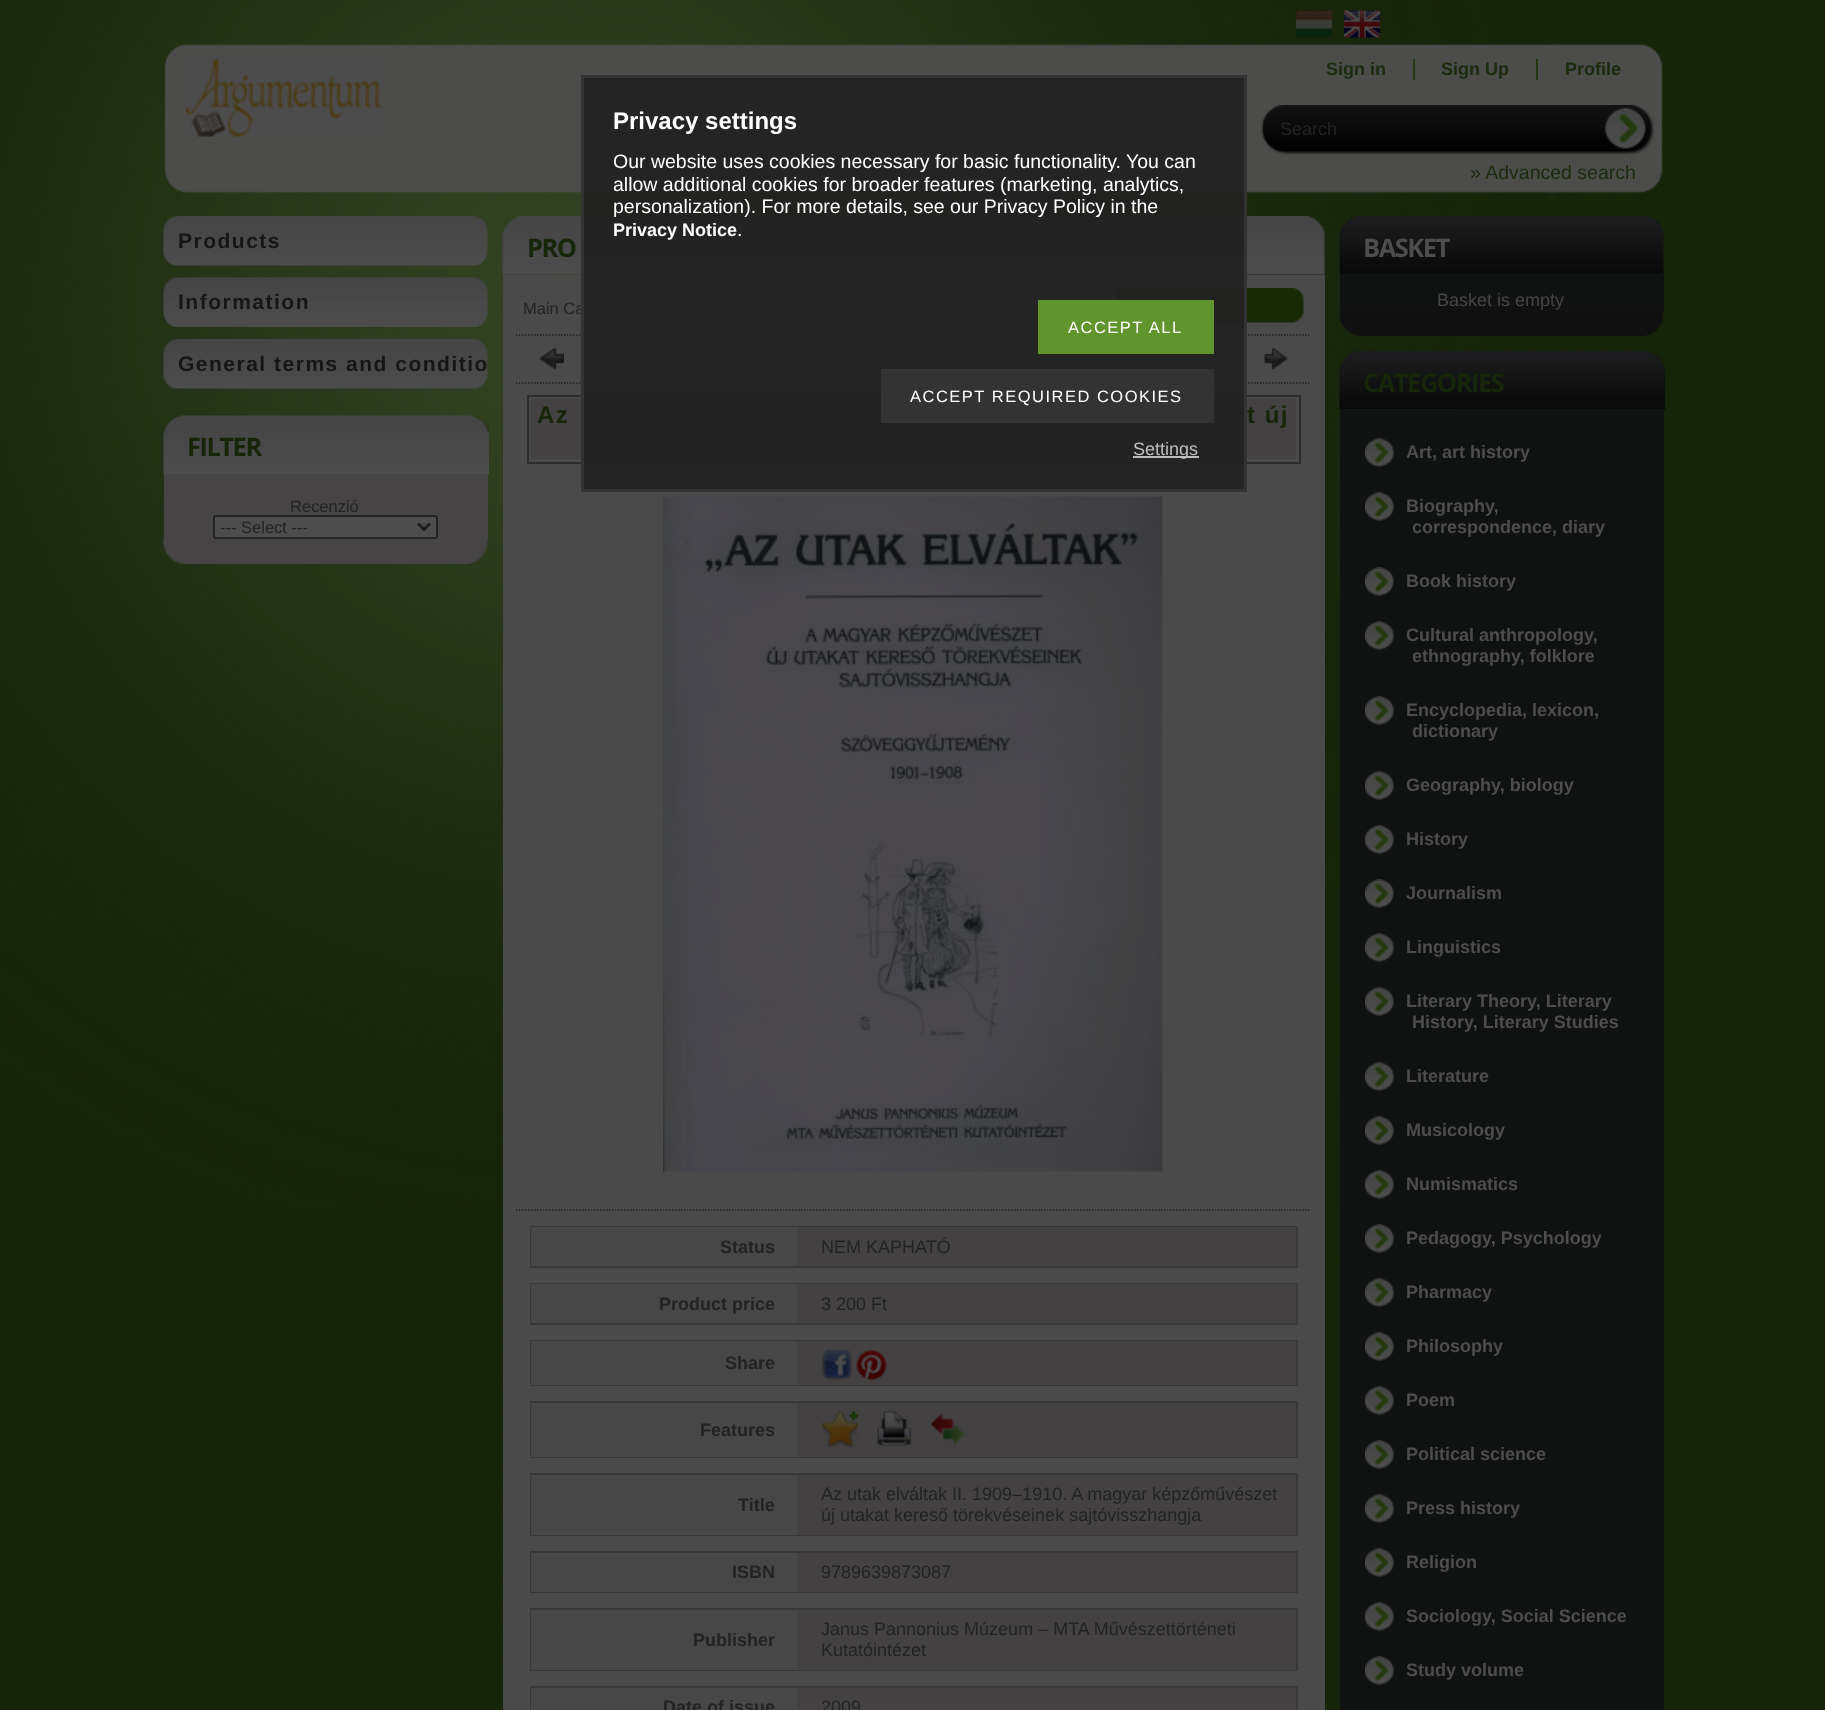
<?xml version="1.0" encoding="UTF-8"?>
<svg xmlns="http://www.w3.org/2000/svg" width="1825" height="1710">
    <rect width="100%" height="100%" fill="#FFFFFF"/>
    <image x="0" y="0" width="1825" height="1710" href="img_01.png"/>
    <image x="0" y="0" width="1489" height="1208" href="img_02.png"/>
    <image x="1296" y="10" width="36" height="28" href="img_03.png"/>
    <image x="1344" y="10" width="36" height="28" href="img_04.png"/>
    <image x="164" y="43" width="1499" height="151" href="img_05.png"/>
    <image x="186" y="58" width="195" height="79" href="img_06.png"/>
    <text x="1326" y="75" font-family="Liberation Sans" font-size="18" font-weight="700" fill="#1B2B0D">Sign in</text>
    <rect x="1413" y="59" width="2" height="21" fill="#22370E"/>
    <text x="1441" y="75" font-family="Liberation Sans" font-size="18" font-weight="700" fill="#1B2B0D">Sign Up</text>
    <rect x="1536" y="59" width="2" height="21" fill="#22370E"/>
    <text x="1565" y="75" font-family="Liberation Sans" font-size="18" font-weight="700" fill="#1B2B0D">Profile</text>
    <image x="1261" y="105" width="394" height="50" href="img_07.png"/>
    <text x="1280" y="135" font-family="Liberation Sans" font-size="18" fill="#232323">Search</text>
    <text x="1470" y="179" font-family="Liberation Sans" font-size="19.5" fill="#1B2B0D">» Advanced search</text>
    <image x="163" y="216" width="325" height="50" href="img_08.png"/>
    <text x="178" y="248" font-family="Liberation Sans" font-size="21" font-weight="700" letter-spacing="1.5" fill="#161617">Products</text>
    <image x="163" y="277" width="325" height="50" href="img_09.png"/>
    <text x="178" y="309" font-family="Liberation Sans" font-size="21" font-weight="700" letter-spacing="1.5" fill="#161617">Information</text>
    <image x="163" y="339" width="325" height="50" href="img_10.png"/>
    <text x="178" y="371" font-family="Liberation Sans" font-size="21" font-weight="700" letter-spacing="1.5" fill="#161617">General terms and conditio</text>
    <image x="163" y="415" width="326" height="59" href="img_11.png"/>
    <text x="187" y="456" font-family="Open Sans" font-size="25.5" font-weight="700" letter-spacing="-1.5" fill="#172509">FILTER</text>
    <image x="163" y="538" width="325" height="26" href="img_12.png"/>
    <rect x="164" y="474" width="324" height="65" fill="#464444"/>
    <text x="290" y="512" font-family="Liberation Sans" font-size="16.5" fill="#232323">Recenzió</text>
    <rect x="214" y="516" width="223" height="22" rx="2" fill="#4D4D4D" stroke="#232323" stroke-width="2"/>
    <path d="M 418 523.5 L 424 529.5 L 430 523.5" fill="none" stroke="#1F1E1E" stroke-width="3"/>
    <text x="220" y="533" font-family="Liberation Sans" font-size="16.5" fill="#232323">--- Select ---</text>
    <image x="502" y="216" width="823" height="59" href="img_13.png"/>
    <text x="527" y="257" font-family="Open Sans" font-size="25.5" font-weight="700" letter-spacing="-1.5" fill="#172509">PRO</text>
    <rect x="503" y="275" width="822" height="1435" fill="#4A4A4A"/>
    <text x="523" y="314" font-family="Liberation Sans" font-size="16.5" fill="#232323">Main Ca</text>
    <image x="1116" y="288" width="188" height="35" href="img_14.png"/>
    <path d="M 516 335 H 1311" fill="none" stroke="#202020" stroke-width="1.5" stroke-dasharray="1.5 1.5"/>
    <image x="539" y="347" width="25" height="23" href="img_15.png"/>
    <image x="1264" y="347" width="24" height="23" href="img_16.png"/>
    <path d="M 516 383 H 1311" fill="none" stroke="#202020" stroke-width="1.5" stroke-dasharray="1.5 1.5"/>
    <rect x="528" y="396" width="772" height="67" fill="none" stroke="#2C2C2C" stroke-width="2"/>
    <rect x="531" y="399" width="765" height="60" fill="#434141"/>
    <text x="537" y="423" font-family="Liberation Sans" font-size="24" font-weight="700" letter-spacing="1.5" fill="#172509">Az</text>
    <text x="1247" y="423" font-family="Liberation Sans" font-size="24" font-weight="700" letter-spacing="1.5" fill="#172509">t új</text>
    <image x="663" y="496" width="500" height="676" href="img_17.png"/>
    <path d="M 516 1210 H 1311" fill="none" stroke="#202020" stroke-width="1.5" stroke-dasharray="1.5 1.5"/>
    <rect x="531" y="1227" width="766" height="40" fill="none" stroke="#383838" stroke-width="2"/>
    <rect x="531" y="1227" width="266" height="39" fill="#474747"/>
    <text x="720" y="1253" font-family="Liberation Sans" font-size="18" font-weight="700" fill="#232323">Status</text>
    <rect x="797" y="1227" width="499" height="39" fill="#434141"/>
    <text x="821" y="1253" font-family="Liberation Sans" font-size="18" fill="#232323">NEM KAPHATÓ</text>
    <rect x="531" y="1284" width="766" height="40" fill="none" stroke="#383838" stroke-width="2"/>
    <rect x="531" y="1284" width="266" height="39" fill="#474747"/>
    <text x="659" y="1310" font-family="Liberation Sans" font-size="18" font-weight="700" fill="#232323">Product price</text>
    <rect x="797" y="1284" width="499" height="39" fill="#434141"/>
    <text x="821" y="1310" font-family="Liberation Sans" font-size="18" fill="#232323">3 200 Ft</text>
    <rect x="531" y="1341" width="766" height="44" fill="none" stroke="#383838" stroke-width="2"/>
    <rect x="531" y="1341" width="266" height="44" fill="#474747"/>
    <text x="725" y="1369" font-family="Liberation Sans" font-size="18" font-weight="700" fill="#232323">Share</text>
    <rect x="797" y="1341" width="499" height="44" fill="#434141"/>
    <image x="822" y="1350" width="30" height="30" href="img_18.png"/>
    <image x="856" y="1350" width="31" height="30" href="img_19.png"/>
    <rect x="531" y="1402" width="766" height="55" fill="none" stroke="#383838" stroke-width="2"/>
    <rect x="531" y="1403" width="266" height="54" fill="#474747"/>
    <text x="700" y="1436" font-family="Liberation Sans" font-size="18" font-weight="700" fill="#232323">Features</text>
    <rect x="797" y="1403" width="499" height="54" fill="#434141"/>
    <image x="822" y="1411" width="36" height="37" href="img_20.png"/>
    <image x="877" y="1411" width="35" height="36" href="img_21.png"/>
    <image x="931" y="1414" width="35" height="31" href="img_22.png"/>
    <rect x="531" y="1474" width="766" height="61" fill="none" stroke="#383838" stroke-width="2"/>
    <rect x="531" y="1475" width="266" height="60" fill="#474747"/>
    <text x="738" y="1511" font-family="Liberation Sans" font-size="18" font-weight="700" fill="#232323">Title</text>
    <rect x="797" y="1475" width="499" height="60" fill="#434141"/>
    <text font-family="Liberation Sans" font-size="18" fill="#232323">
        <tspan x="821" y="1500">Az utak elváltak II. 1909–1910. A magyar képzőművészet</tspan>
        <tspan x="821" y="1521">új utakat kereső törekvéseinek sajtóvisszhangja</tspan>
    </text>
    <rect x="531" y="1552" width="766" height="40" fill="none" stroke="#383838" stroke-width="2"/>
    <rect x="531" y="1553" width="266" height="39" fill="#474747"/>
    <text x="732" y="1578" font-family="Liberation Sans" font-size="18" font-weight="700" fill="#232323">ISBN</text>
    <rect x="797" y="1553" width="499" height="39" fill="#434141"/>
    <text x="821" y="1578" font-family="Liberation Sans" font-size="18" fill="#232323">9789639873087</text>
    <rect x="531" y="1609" width="766" height="61" fill="none" stroke="#383838" stroke-width="2"/>
    <rect x="531" y="1610" width="266" height="60" fill="#474747"/>
    <text x="693" y="1646" font-family="Liberation Sans" font-size="18" font-weight="700" fill="#232323">Publisher</text>
    <rect x="797" y="1610" width="499" height="60" fill="#434141"/>
    <text font-family="Liberation Sans" font-size="18" fill="#232323">
        <tspan x="821" y="1635">Janus Pannonius Múzeum – MTA Művészettörténeti</tspan>
        <tspan x="821" y="1656">Kutatóintézet</tspan>
    </text>
    <rect x="531" y="1687" width="766" height="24" fill="none" stroke="#383838" stroke-width="2"/>
    <rect x="531" y="1688" width="266" height="22" fill="#474747"/>
    <text x="663" y="1713" font-family="Liberation Sans" font-size="18" font-weight="700" fill="#232323">Date of issue</text>
    <rect x="797" y="1688" width="499" height="22" fill="#434141"/>
    <text x="821" y="1713" font-family="Liberation Sans" font-size="18" fill="#232323">2009</text>
    <image x="1339" y="216" width="325" height="59" href="img_23.png"/>
    <text x="1363" y="257" font-family="Open Sans" font-size="25.5" font-weight="700" letter-spacing="-1.5" fill="#4D4D4D">BASKET</text>
    <rect x="1340" y="275" width="324" height="36" fill="#101111"/>
    <text x="1437" y="306" font-family="Liberation Sans" font-size="18" fill="#474646">Basket is empty</text>
    <image x="1339" y="310" width="325" height="26" href="img_24.png"/>
    <image x="1339" y="351" width="326" height="59" href="img_25.png"/>
    <text x="1363" y="392" font-family="Open Sans" font-size="25.5" font-weight="700" letter-spacing="-1.5" fill="#172509">CATEGORIES</text>
    <rect x="1340" y="410" width="324" height="1300" fill="#101111"/>
    <image x="1365" y="438" width="29" height="29" href="img_26.png"/>
    <text x="1406" y="458" font-family="Liberation Sans" font-size="18" font-weight="700" fill="#4D4D4D">Art, art history</text>
    <image x="1365" y="492" width="29" height="29" href="img_26.png"/>
    <text x="1406" y="512" font-family="Liberation Sans" font-size="18" font-weight="700" fill="#4D4D4D">Biography,</text>
    <text x="1412" y="533" font-family="Liberation Sans" font-size="18" font-weight="700" fill="#4D4D4D">correspondence, diary</text>
    <image x="1365" y="567" width="29" height="29" href="img_26.png"/>
    <text x="1406" y="587" font-family="Liberation Sans" font-size="18" font-weight="700" fill="#4D4D4D">Book history</text>
    <image x="1365" y="621" width="29" height="29" href="img_26.png"/>
    <text x="1406" y="641" font-family="Liberation Sans" font-size="18" font-weight="700" fill="#4D4D4D">Cultural anthropology,</text>
    <text x="1412" y="662" font-family="Liberation Sans" font-size="18" font-weight="700" fill="#4D4D4D">ethnography, folklore</text>
    <image x="1365" y="696" width="29" height="29" href="img_26.png"/>
    <text x="1406" y="716" font-family="Liberation Sans" font-size="18" font-weight="700" fill="#4D4D4D">Encyclopedia, lexicon,</text>
    <text x="1412" y="737" font-family="Liberation Sans" font-size="18" font-weight="700" fill="#4D4D4D">dictionary</text>
    <image x="1365" y="771" width="29" height="29" href="img_26.png"/>
    <text x="1406" y="791" font-family="Liberation Sans" font-size="18" font-weight="700" fill="#4D4D4D">Geography, biology</text>
    <image x="1365" y="825" width="29" height="29" href="img_26.png"/>
    <text x="1406" y="845" font-family="Liberation Sans" font-size="18" font-weight="700" fill="#4D4D4D">History</text>
    <image x="1365" y="879" width="29" height="29" href="img_26.png"/>
    <text x="1406" y="899" font-family="Liberation Sans" font-size="18" font-weight="700" fill="#4D4D4D">Journalism</text>
    <image x="1365" y="933" width="29" height="29" href="img_26.png"/>
    <text x="1406" y="953" font-family="Liberation Sans" font-size="18" font-weight="700" fill="#4D4D4D">Linguistics</text>
    <image x="1365" y="987" width="29" height="29" href="img_26.png"/>
    <text x="1406" y="1007" font-family="Liberation Sans" font-size="18" font-weight="700" fill="#4D4D4D">Literary Theory, Literary</text>
    <text x="1412" y="1028" font-family="Liberation Sans" font-size="18" font-weight="700" fill="#4D4D4D">History, Literary Studies</text>
    <image x="1365" y="1062" width="29" height="29" href="img_26.png"/>
    <text x="1406" y="1082" font-family="Liberation Sans" font-size="18" font-weight="700" fill="#4D4D4D">Literature</text>
    <image x="1365" y="1116" width="29" height="29" href="img_26.png"/>
    <text x="1406" y="1136" font-family="Liberation Sans" font-size="18" font-weight="700" fill="#4D4D4D">Musicology</text>
    <image x="1365" y="1170" width="29" height="29" href="img_26.png"/>
    <text x="1406" y="1190" font-family="Liberation Sans" font-size="18" font-weight="700" fill="#4D4D4D">Numismatics</text>
    <image x="1365" y="1224" width="29" height="29" href="img_26.png"/>
    <text x="1406" y="1244" font-family="Liberation Sans" font-size="18" font-weight="700" fill="#4D4D4D">Pedagogy, Psychology</text>
    <image x="1365" y="1278" width="29" height="29" href="img_26.png"/>
    <text x="1406" y="1298" font-family="Liberation Sans" font-size="18" font-weight="700" fill="#4D4D4D">Pharmacy</text>
    <image x="1365" y="1332" width="29" height="29" href="img_26.png"/>
    <text x="1406" y="1352" font-family="Liberation Sans" font-size="18" font-weight="700" fill="#4D4D4D">Philosophy</text>
    <image x="1365" y="1386" width="29" height="29" href="img_26.png"/>
    <text x="1406" y="1406" font-family="Liberation Sans" font-size="18" font-weight="700" fill="#4D4D4D">Poem</text>
    <image x="1365" y="1440" width="29" height="29" href="img_26.png"/>
    <text x="1406" y="1460" font-family="Liberation Sans" font-size="18" font-weight="700" fill="#4D4D4D">Political science</text>
    <image x="1365" y="1494" width="29" height="29" href="img_26.png"/>
    <text x="1406" y="1514" font-family="Liberation Sans" font-size="18" font-weight="700" fill="#4D4D4D">Press history</text>
    <image x="1365" y="1548" width="29" height="29" href="img_26.png"/>
    <text x="1406" y="1568" font-family="Liberation Sans" font-size="18" font-weight="700" fill="#4D4D4D">Religion</text>
    <image x="1365" y="1602" width="29" height="29" href="img_26.png"/>
    <text x="1406" y="1622" font-family="Liberation Sans" font-size="18" font-weight="700" fill="#4D4D4D">Sociology, Social Science</text>
    <image x="1365" y="1656" width="29" height="29" href="img_26.png"/>
    <text x="1406" y="1676" font-family="Liberation Sans" font-size="18" font-weight="700" fill="#4D4D4D">Study volume</text>
    <rect x="582.5" y="76.5" width="663" height="414" fill="#222222" fill-opacity="0.95" stroke="#333333" stroke-width="3"/>
    <text x="613" y="129" font-family="Liberation Sans" font-size="24" font-weight="700" fill="#FFFFFF">Privacy settings</text>
    <text font-family="Liberation Sans" font-size="19.5" fill="#FFFFFF">
        <tspan x="613" y="168">Our website uses cookies necessary for basic functionality. You can</tspan>
        <tspan x="613" y="191">allow additional cookies for broader features (marketing, analytics,</tspan>
        <tspan x="613" y="213">personalization). For more details, see our Privacy Policy in the</tspan>
    </text>
    <text x="613" y="236" font-family="Liberation Sans" font-size="18" font-weight="700" fill="#FFFFFF">Privacy Notice</text>
    <text x="737" y="236" font-family="Liberation Sans" font-size="19.5" fill="#FFFFFF">.</text>
    <rect x="1038" y="300" width="176" height="54" fill="#60952D"/>
    <text x="1068" y="333" font-family="Liberation Sans" font-size="16.5" letter-spacing="1.5" fill="#FFFFFF">ACCEPT ALL</text>
    <rect x="881" y="369" width="333" height="54" fill="#333333"/>
    <text x="910" y="402" font-family="Liberation Sans" font-size="16.5" letter-spacing="1.5" fill="#FFFFFF">ACCEPT REQUIRED COOKIES</text>
    <rect x="1133" y="456" width="66" height="2" fill="#BDBDBD"/>
    <text x="1133" y="455" font-family="Liberation Sans" font-size="18" fill="#BEBEBE">Settings</text>
</svg>
